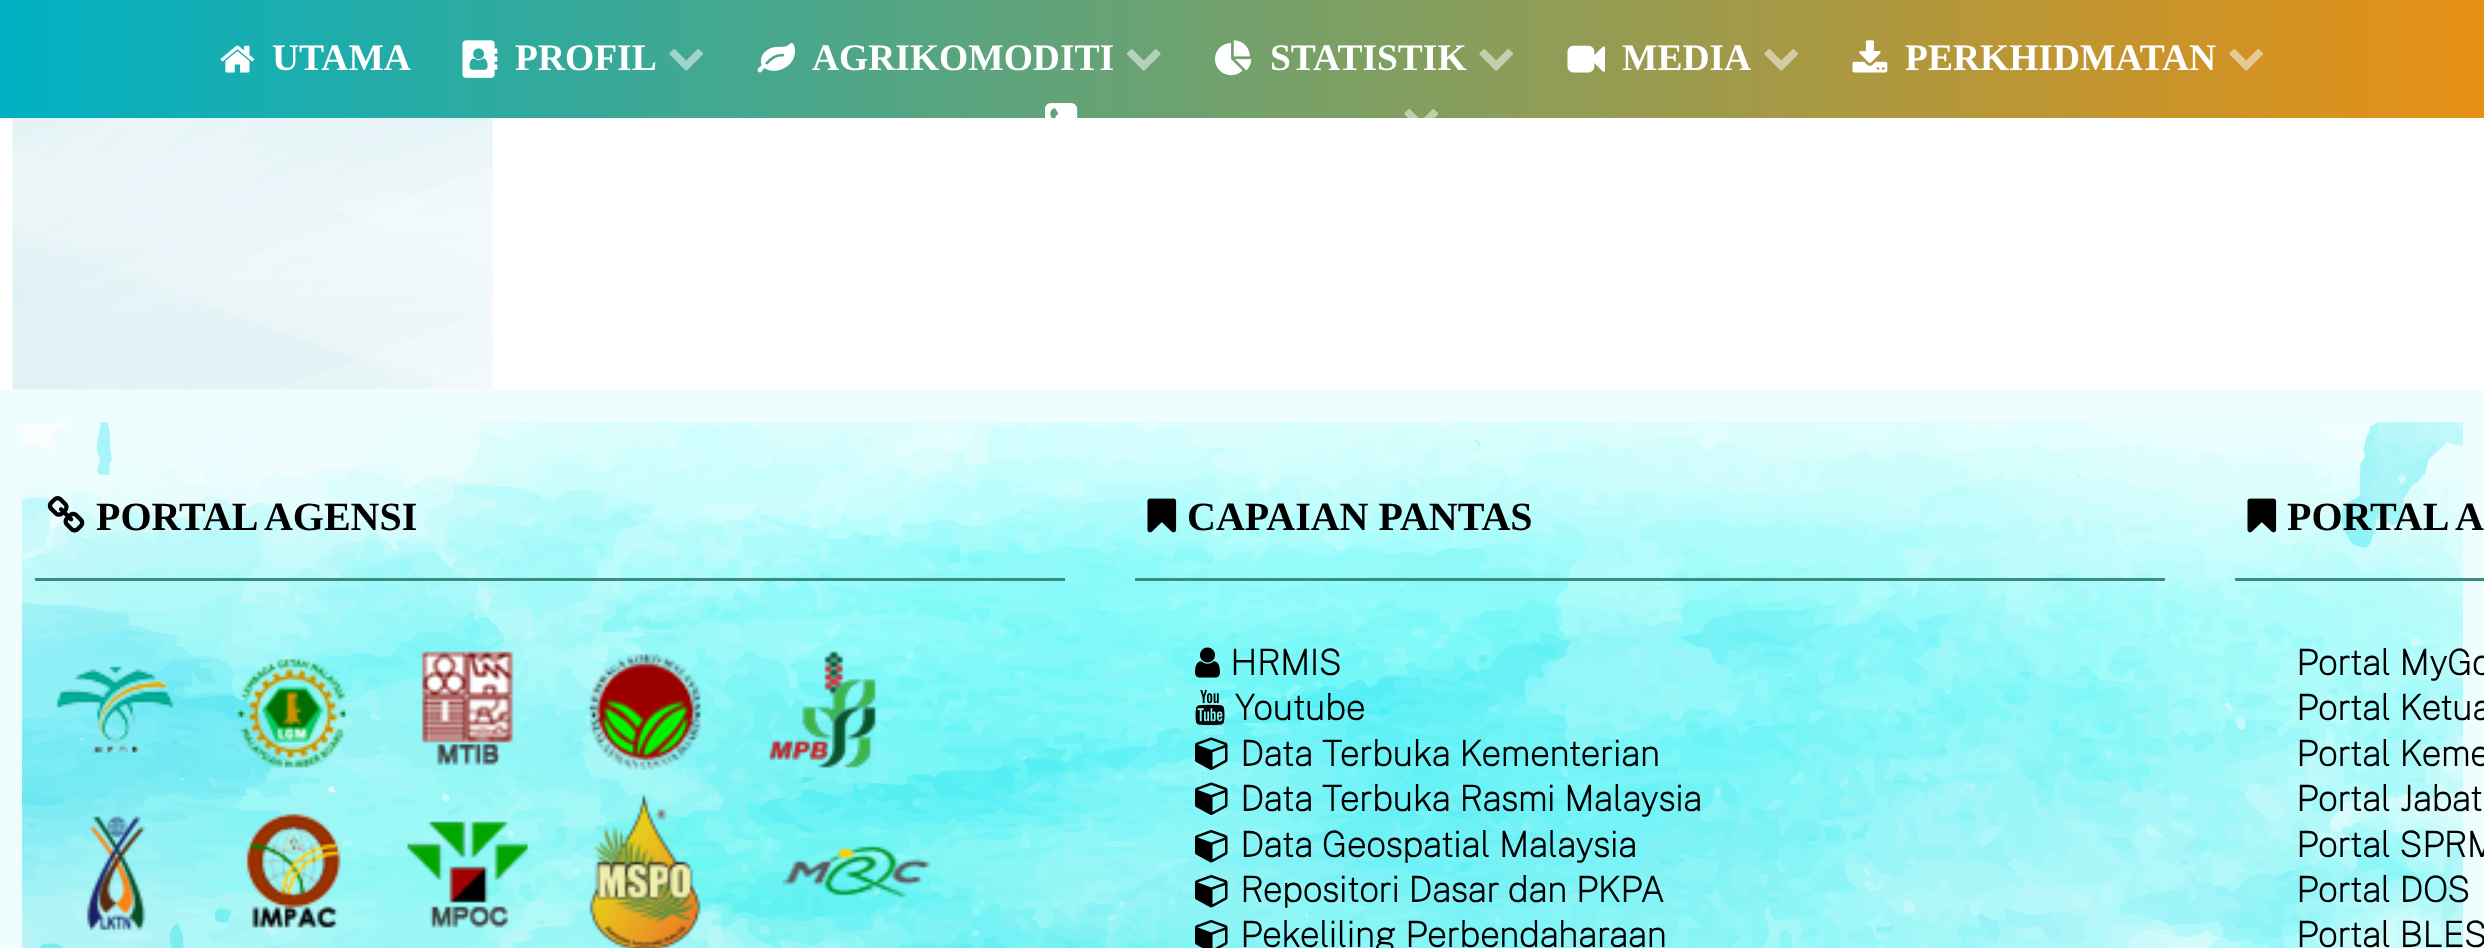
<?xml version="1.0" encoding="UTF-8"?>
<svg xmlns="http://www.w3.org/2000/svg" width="2484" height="948">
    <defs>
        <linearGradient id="g1" gradientUnits="userSpaceOnUse" x1="0" y1="59" x2="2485" y2="59"><stop offset="0" stop-color="#020024"/><stop offset="0" stop-color="#70D7EF"/><stop offset="0" stop-color="#00B1C3"/><stop offset="1" stop-color="#E69014"/></linearGradient>
    </defs>
    <rect width="100%" height="100%" fill="#FFFFFF"/>
    <rect x="0" y="0" width="2484" height="118" fill="url(#g1)"/>
    <image x="220" y="45" width="35" height="28" href="img_01.png"/>
    <text x="272" y="70" font-family="Liberation Serif" font-size="37.5" font-weight="700" fill="#FFFFFF">UTAMA</text>
    <image x="462" y="40" width="36" height="38" href="img_02.png"/>
    <text x="515" y="70" font-family="Liberation Serif" font-size="37.5" font-weight="700" fill="#FFFFFF">PROFIL</text>
    <image x="669" y="49" width="35" height="22" href="img_03.png"/>
    <image x="757" y="43" width="38" height="30" href="img_04.png"/>
    <text x="812" y="70" font-family="Liberation Serif" font-size="37.5" font-weight="700" fill="#FFFFFF">AGRIKOMODITI</text>
    <image x="1126" y="49" width="35" height="22" href="img_05.png"/>
    <image x="1215" y="40" width="37" height="36" href="img_06.png"/>
    <text x="1270" y="70" font-family="Liberation Serif" font-size="37.5" font-weight="700" fill="#FFFFFF">STATISTIK</text>
    <image x="1479" y="49" width="35" height="22" href="img_07.png"/>
    <image x="1567" y="45" width="38" height="28" href="img_08.png"/>
    <text x="1622" y="70" font-family="Liberation Serif" font-size="37.5" font-weight="700" fill="#FFFFFF">MEDIA</text>
    <image x="1764" y="49" width="35" height="22" href="img_09.png"/>
    <image x="1852" y="40" width="36" height="33" href="img_10.png"/>
    <text x="1905" y="70" font-family="Liberation Serif" font-size="37.5" font-weight="700" fill="#FFFFFF">PERKHIDMATAN</text>
    <image x="2229" y="49" width="35" height="22" href="img_11.png"/>
    <image x="1045" y="103" width="33" height="15" href="img_12.png"/>
    <image x="1404" y="109" width="35" height="9" href="img_13.png"/>
    <image x="12" y="118" width="481" height="272" href="img_14.png"/>
    <rect x="0" y="390" width="2484" height="558" fill="#EEFDFE"/>
    <image x="22" y="422" width="2441" height="526" href="img_15.png"/>
    <rect x="35" y="578" width="1030" height="3" fill="#3B8C80"/>
    <image x="47" y="496" width="38" height="37" href="img_16.png"/>
    <text x="96" y="530" font-family="Liberation Serif" font-size="40" font-weight="700" fill="#000000">PORTAL AGENSI</text>
    <image x="56" y="666" width="118" height="87" href="img_17.png"/>
    <image x="236" y="658" width="110" height="110" href="img_18.png"/>
    <image x="421" y="651" width="93" height="115" href="img_19.png"/>
    <image x="589" y="653" width="112" height="117" href="img_20.png"/>
    <image x="769" y="651" width="107" height="117" href="img_21.png"/>
    <image x="86" y="816" width="60" height="115" href="img_22.png"/>
    <image x="244" y="813" width="97" height="115" href="img_23.png"/>
    <image x="407" y="821" width="121" height="107" href="img_24.png"/>
    <image x="589" y="794" width="112" height="154" href="img_25.png"/>
    <image x="782" y="846" width="149" height="52" href="img_26.png"/>
    <rect x="1135" y="578" width="1030" height="3" fill="#3B8C80"/>
    <image x="1147" y="498" width="30" height="35" href="img_27.png"/>
    <text x="1187" y="530" font-family="Liberation Serif" font-size="40" font-weight="700" fill="#000000">CAPAIAN PANTAS</text>
    <image x="1195" y="647" width="25" height="31" href="img_28.png"/>
    <text x="1230" y="675" font-family="Public Sans" font-size="35" font-weight="700" fill="#000000">HRMIS</text>
    <image x="1195" y="690" width="30" height="35" href="img_29.png"/>
    <text x="1235" y="720" font-family="Public Sans" font-size="35" font-weight="700" fill="#000000">Youtube</text>
    <image x="1195" y="737" width="33" height="33" href="img_30.png"/>
    <text x="1240" y="766" font-family="Public Sans" font-size="35" font-weight="700" fill="#000000">Data Terbuka Kementerian</text>
    <image x="1195" y="782" width="33" height="33" href="img_31.png"/>
    <text x="1240" y="811" font-family="Public Sans" font-size="35" font-weight="700" fill="#000000">Data Terbuka Rasmi Malaysia</text>
    <image x="1195" y="830" width="33" height="33" href="img_32.png"/>
    <text x="1240" y="857" font-family="Public Sans" font-size="35" font-weight="700" fill="#000000">Data Geospatial Malaysia</text>
    <image x="1195" y="875" width="33" height="33" href="img_33.png"/>
    <text x="1240" y="902" font-family="Public Sans" font-size="35" font-weight="700" fill="#000000">Repositori Dasar dan PKPA</text>
    <image x="1195" y="920" width="33" height="28" href="img_34.png"/>
    <text x="1240" y="947" font-family="Public Sans" font-size="35" font-weight="700" fill="#000000">Pekeliling Perbendaharaan</text>
    <rect x="2235" y="578" width="249" height="3" fill="#3B8C80"/>
    <image x="2247" y="498" width="30" height="35" href="img_35.png"/>
    <text x="2287" y="530" font-family="Liberation Serif" font-size="40" font-weight="700" fill="#000000">PORTAL A</text>
    <text font-family="Public Sans" font-size="35" font-weight="700" fill="#000000">
        <tspan x="2296" y="675">Portal MyGo</tspan>
        <tspan x="2296" y="720">Portal Ketua</tspan>
        <tspan x="2296" y="766">Portal Keme</tspan>
        <tspan x="2296" y="811">Portal Jabat</tspan>
        <tspan x="2296" y="857">Portal SPRM</tspan>
        <tspan x="2296" y="902">Portal DOS</tspan>
        <tspan x="2296" y="947">Portal BLES</tspan>
    </text>
</svg>
